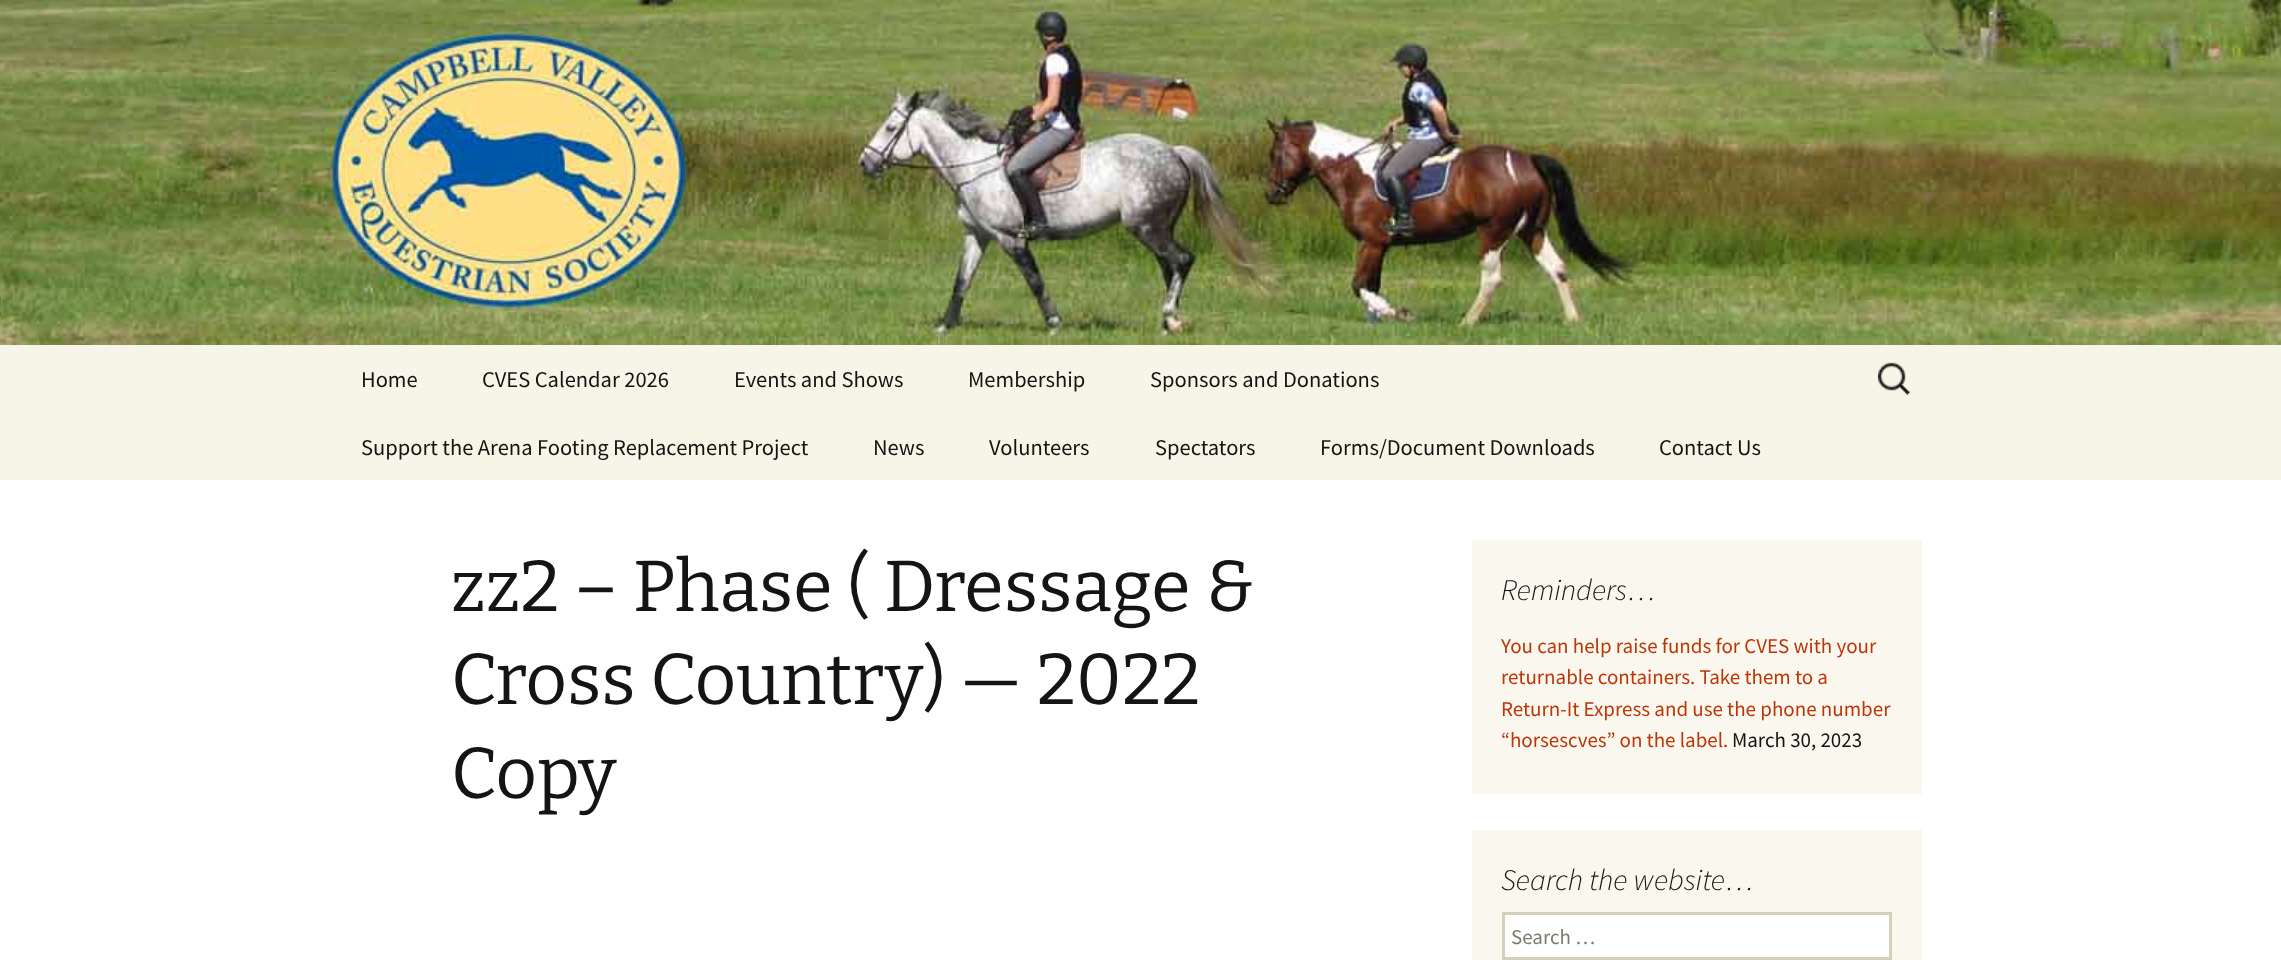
<?xml version="1.0" encoding="UTF-8"?>
<svg xmlns="http://www.w3.org/2000/svg" width="2281" height="960">
    <rect width="100%" height="100%" fill="#FFFFFF"/>
    <image x="0" y="0" width="2281" height="345" href="img_01.png"/>
    <rect x="0" y="345" width="2281" height="135" fill="#F7F5E7"/>
    <text x="361" y="387" font-family="Source Sans Pro" font-size="22.5" fill="#141412">Home</text>
    <text x="482" y="387" font-family="Source Sans Pro" font-size="22.5" fill="#141412">CVES Calendar 2026</text>
    <text x="734" y="387" font-family="Source Sans Pro" font-size="22.5" fill="#141412">Events and Shows</text>
    <text x="968" y="387" font-family="Source Sans Pro" font-size="22.5" fill="#141412">Membership</text>
    <text x="1150" y="387" font-family="Source Sans Pro" font-size="22.5" fill="#141412">Sponsors and Donations</text>
    <text x="361" y="455" font-family="Source Sans Pro" font-size="22.5" fill="#141412">Support the Arena Footing Replacement Project</text>
    <text x="873" y="455" font-family="Source Sans Pro" font-size="22.5" fill="#141412">News</text>
    <text x="989" y="455" font-family="Source Sans Pro" font-size="22.5" fill="#141412">Volunteers</text>
    <text x="1155" y="455" font-family="Source Sans Pro" font-size="22.5" fill="#141412">Spectators</text>
    <text x="1320" y="455" font-family="Source Sans Pro" font-size="22.5" fill="#141412">Forms/Document Downloads</text>
    <text x="1659" y="455" font-family="Source Sans Pro" font-size="22.5" fill="#141412">Contact Us</text>
    <image x="1878" y="362" width="32" height="33" href="img_02.png"/>
    <text font-family="Bitter" font-size="72" fill="#141412">
        <tspan x="451" y="611">zz2 – Phase ( Dressage &amp;</tspan>
        <tspan x="451" y="704">Cross Country) — 2022</tspan>
        <tspan x="451" y="798">Copy</tspan>
    </text>
    <rect x="1472" y="540" width="450" height="254" fill="#FAF8EE"/>
    <text x="1501" y="600" font-family="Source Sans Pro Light" font-size="30" font-weight="300" font-style="italic" fill="#141412">Reminders…</text>
    <text font-family="Source Sans Pro" font-size="21" fill="#BC360A">
        <tspan x="1501" y="653">You can help raise funds for CVES with your</tspan>
        <tspan x="1501" y="684">returnable containers. Take them to a</tspan>
        <tspan x="1501" y="716">Return-It Express and use the phone number</tspan>
        <tspan x="1501" y="747">“horsescves” on the label.</tspan>
    </text>
    <text x="1732" y="747" font-family="Source Sans Pro" font-size="21" fill="#141412">March 30, 2023</text>
    <rect x="1472" y="830" width="450" height="130" fill="#F9F8EE"/>
    <text x="1501" y="890" font-family="Source Sans Pro Light" font-size="30" font-weight="300" font-style="italic" fill="#141412">Search the website…</text>
    <rect x="1503.5" y="913.5" width="387" height="45" fill="#FFFFFF" stroke="#D4D0BA" stroke-width="3"/>
    <text x="1511" y="944" font-family="Source Sans Pro" font-size="21" fill="#7D7B6D">Search …</text>
</svg>
